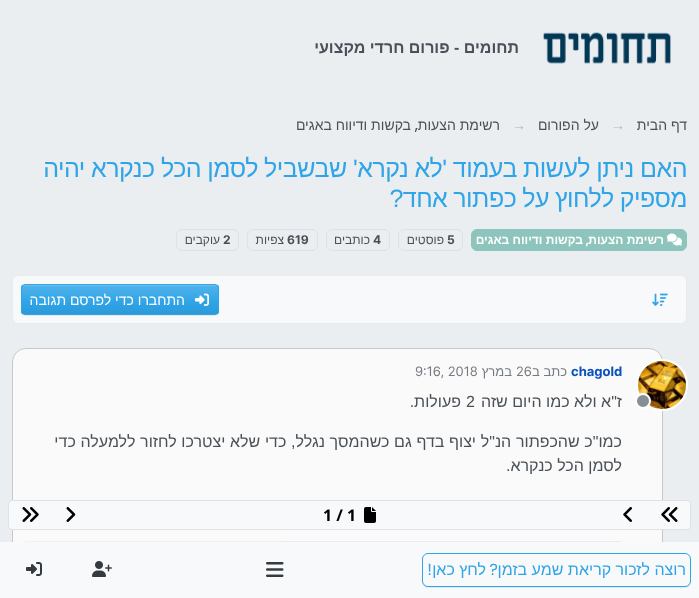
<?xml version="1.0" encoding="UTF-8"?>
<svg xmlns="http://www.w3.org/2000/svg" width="699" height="598">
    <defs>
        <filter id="blur1" x="-50%" y="-200%" width="200%" height="500%"><feGaussianBlur stdDeviation="0.5"/></filter>
        <clipPath id="clip1"><rect x="21" y="284" width="198" height="31" rx="4"/></clipPath>
        <linearGradient id="g1" gradientUnits="userSpaceOnUse" x1="120" y1="285" x2="120" y2="314"><stop offset="0" stop-color="#50B3EB"/><stop offset="0.6" stop-color="#2FA4E7"/><stop offset="1" stop-color="#2C9AD9"/></linearGradient>
    </defs>
    <rect width="100%" height="100%" fill="#EAEEF1"/>
    <image x="543" y="32" width="128" height="32" href="img_01.png"/>
    <text x="519" y="53" font-family="Liberation Sans" font-size="16" font-weight="700" direction="rtl" fill="#495057">תחומים - פורום חרדי מקצועי</text>
    <text x="687" y="130" font-family="Liberation Sans" font-size="14" direction="rtl" fill="#495057">דף הבית</text>
    <text x="611" y="130" font-family="Liberation Sans" font-size="14" fill="#ADB5BD">→</text>
    <text x="599" y="130" font-family="Liberation Sans" font-size="14" direction="rtl" fill="#495057">על הפורום</text>
    <text x="512" y="130" font-family="Liberation Sans" font-size="14" fill="#ADB5BD">→</text>
    <text x="500" y="130" font-family="Liberation Sans" font-size="14" direction="rtl" fill="#495057">רשימת הצעות</text>
    <text x="418" y="130" font-family="Poppins" font-size="14" font-weight="500" direction="rtl" fill="#495057">,</text>
    <text x="411" y="130" font-family="Liberation Sans" font-size="14" direction="rtl" fill="#495057">בקשות ודיווח באגים</text>
    <text font-family="Liberation Sans" font-size="25" letter-spacing="-0.5" direction="rtl" fill="#2FA4E7">
        <tspan x="687" y="177" word-spacing="-0.25">האם ניתן לעשות בעמוד 'לא נקרא' שבשביל לסמן הכל כנקרא יהיה</tspan>
        <tspan x="687" y="207" word-spacing="-0.5">מספיק ללחוץ על כפתור אחד?</tspan>
    </text>
    <rect x="471.5" y="229.5" width="215" height="21" rx="5.5" fill="#8DC4BB" stroke="#8DC4BB"/>
    <image x="667" y="233" width="15" height="13" href="img_02.png"/>
    <text x="664" y="244" font-family="Liberation Sans" font-size="12" font-weight="700" direction="rtl" fill="#FFFFFF">רשימת הצעות</text>
    <text x="589" y="244" font-family="Inter" font-size="12" font-weight="700" direction="rtl" fill="#FFFFFF">,</text>
    <text x="583" y="244" font-family="Liberation Sans" font-size="12" font-weight="700" direction="rtl" fill="#FFFFFF">בקשות ודיווח באגים</text>
    <rect x="398.5" y="229.5" width="64" height="21" rx="5.5" fill="none" stroke="#DEE2E6"/>
    <text x="447" y="244" font-family="Inter" font-size="12" font-weight="700" fill="#495057">5</text>
    <text x="444" y="244" font-family="Liberation Sans" font-size="12" direction="rtl" fill="#495057">פוסטים</text>
    <rect x="326.5" y="229.5" width="63" height="21" rx="5.5" fill="none" stroke="#DEE2E6"/>
    <text x="373" y="244" font-family="Inter" font-size="12" font-weight="700" fill="#495057">4</text>
    <text x="370" y="244" font-family="Liberation Sans" font-size="12" direction="rtl" fill="#495057">כותבים</text>
    <rect x="247.5" y="229.5" width="70" height="21" rx="5.5" fill="none" stroke="#DEE2E6"/>
    <text x="287" y="244" font-family="Inter" font-size="12" font-weight="700" fill="#495057">619</text>
    <text x="284" y="244" font-family="Liberation Sans" font-size="12" direction="rtl" fill="#495057">צפיות</text>
    <rect x="176.5" y="229.5" width="62" height="21" rx="5.5" fill="none" stroke="#DEE2E6"/>
    <text x="223" y="244" font-family="Inter" font-size="12" font-weight="700" fill="#495057">2</text>
    <text x="220" y="244" font-family="Liberation Sans" font-size="12" direction="rtl" fill="#495057">עוקבים</text>
    <rect x="12.5" y="275.5" width="674" height="48" rx="5.5" fill="#F8F9FA" stroke="#E9ECEF"/>
    <image x="652" y="293" width="16" height="13" href="img_03.png"/>
    <rect x="21" y="285" width="198" height="31" rx="4" fill="#000000" fill-opacity="0.07" filter="url(#blur1)"/>
    <g clip-path="url(#clip1)">
        <rect x="21" y="285" width="198" height="29" fill="url(#g1)"/>
    </g>
    <path d="M 25 286 H 215 C 217 286 218 287 218 289 C 218 287 217 285 215 285 H 25 C 23 285 22 287 22 289 C 22 287 23 286 25 286 Z" fill="#69BEEE"/>
    <rect x="21.5" y="284.5" width="197" height="30" rx="3.5" fill="none" stroke="#2FA4E7"/>
    <image x="195" y="293" width="14" height="13" href="img_04.png"/>
    <text x="185" y="305" font-family="Liberation Sans" font-size="14" direction="rtl" fill="#FFFFFF">התחברו כדי לפרסם תגובה</text>
    <rect x="12.5" y="348.5" width="650" height="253" rx="13.5" fill="#FAFAFA" stroke="#C8C8C8"/>
    <circle cx="662" cy="385" r="25" fill="none" stroke="#FFFFFF" stroke-width="2"/>
    <image x="638" y="361" width="48" height="48" href="img_05.png"/>
    <circle cx="643" cy="401" r="7" fill="#868E96" stroke="#FFFFFF" stroke-width="2"/>
    <text x="571" y="376" font-family="Inter" font-size="13" font-weight="700" fill="#0951BE">chagold</text>
    <text x="567" y="376" font-family="Liberation Sans" font-size="13" direction="rtl" fill="#757B80">כתב ב</text>
    <text x="516" y="376" font-family="Inter" font-size="13" fill="#757B80">26</text>
    <text x="512" y="376" font-family="Liberation Sans" font-size="13" direction="rtl" fill="#757B80">במרץ</text>
    <text x="415" y="376" font-family="Inter" font-size="13" fill="#757B80">9:16, 2018</text>
    <text x="622" y="407" font-family="Liberation Sans" font-size="16" direction="rtl" fill="#495057">ז"א ולא כמו היום שזה</text>
    <text x="466" y="407" font-family="Liberation Sans" font-size="16" fill="#495057">2</text>
    <text x="461" y="407" font-family="Liberation Sans" font-size="16" direction="rtl" fill="#495057">פעולות.</text>
    <text font-family="Liberation Sans" font-size="16" direction="rtl" fill="#495057">
        <tspan x="622" y="447" word-spacing="0.25">כמו"כ שהכפתור הנ"ל יצוף בדף גם כשהמסך נגלל, כדי שלא יצטרכו לחזור ללמעלה כדי</tspan>
        <tspan x="622" y="471">לסמן הכל כנקרא.</tspan>
    </text>
    <rect x="25" y="541" width="597" height="1" fill="#F0F0F1"/>
    <rect x="282.5" y="541.5" width="339" height="38" rx="3.5" fill="none" stroke="#E9ECEF"/>
    <rect x="8.5" y="500.5" width="682" height="29" rx="3.5" fill="#F8F9FA" stroke="#DEE2E6"/>
    <image x="661" y="507" width="17" height="15" href="img_06.png"/>
    <image x="623" y="507" width="9" height="15" href="img_07.png"/>
    <image x="364" y="507" width="12" height="16" href="img_08.png"/>
    <text x="323" y="521" font-family="Noto Sans" font-size="16" font-weight="700" fill="#000000">1 / 1</text>
    <image x="66" y="507" width="10" height="15" href="img_09.png"/>
    <image x="22" y="507" width="17" height="15" href="img_10.png"/>
    <rect x="0" y="542" width="699" height="56" fill="#F8F9FA"/>
    <rect x="422" y="554" width="269" height="34" rx="6" fill="#000000" fill-opacity="0.07" filter="url(#blur1)"/>
    <rect x="422.5" y="553.5" width="268" height="33" rx="5.5" fill="#F8F9FA" stroke="#2FA4E7"/>
    <text x="686" y="575" font-family="Liberation Sans" font-size="16" direction="rtl" fill="#2FA4E7">רוצה לזכור קריאת שמע בזמן</text>
    <text x="498" y="575" font-family="Poppins" font-size="16" direction="rtl" fill="#2FA4E7">?</text>
    <text x="486" y="575" font-family="Liberation Sans" font-size="16" direction="rtl" fill="#2FA4E7">לחץ כאן</text>
    <text x="432" y="575" font-family="Poppins" font-size="16" direction="rtl" fill="#2FA4E7">!</text>
    <image x="266" y="562" width="18" height="15" href="img_11.png"/>
    <image x="92" y="561" width="20" height="16" href="img_12.png"/>
    <image x="26" y="562" width="16" height="14" href="img_13.png"/>
</svg>
